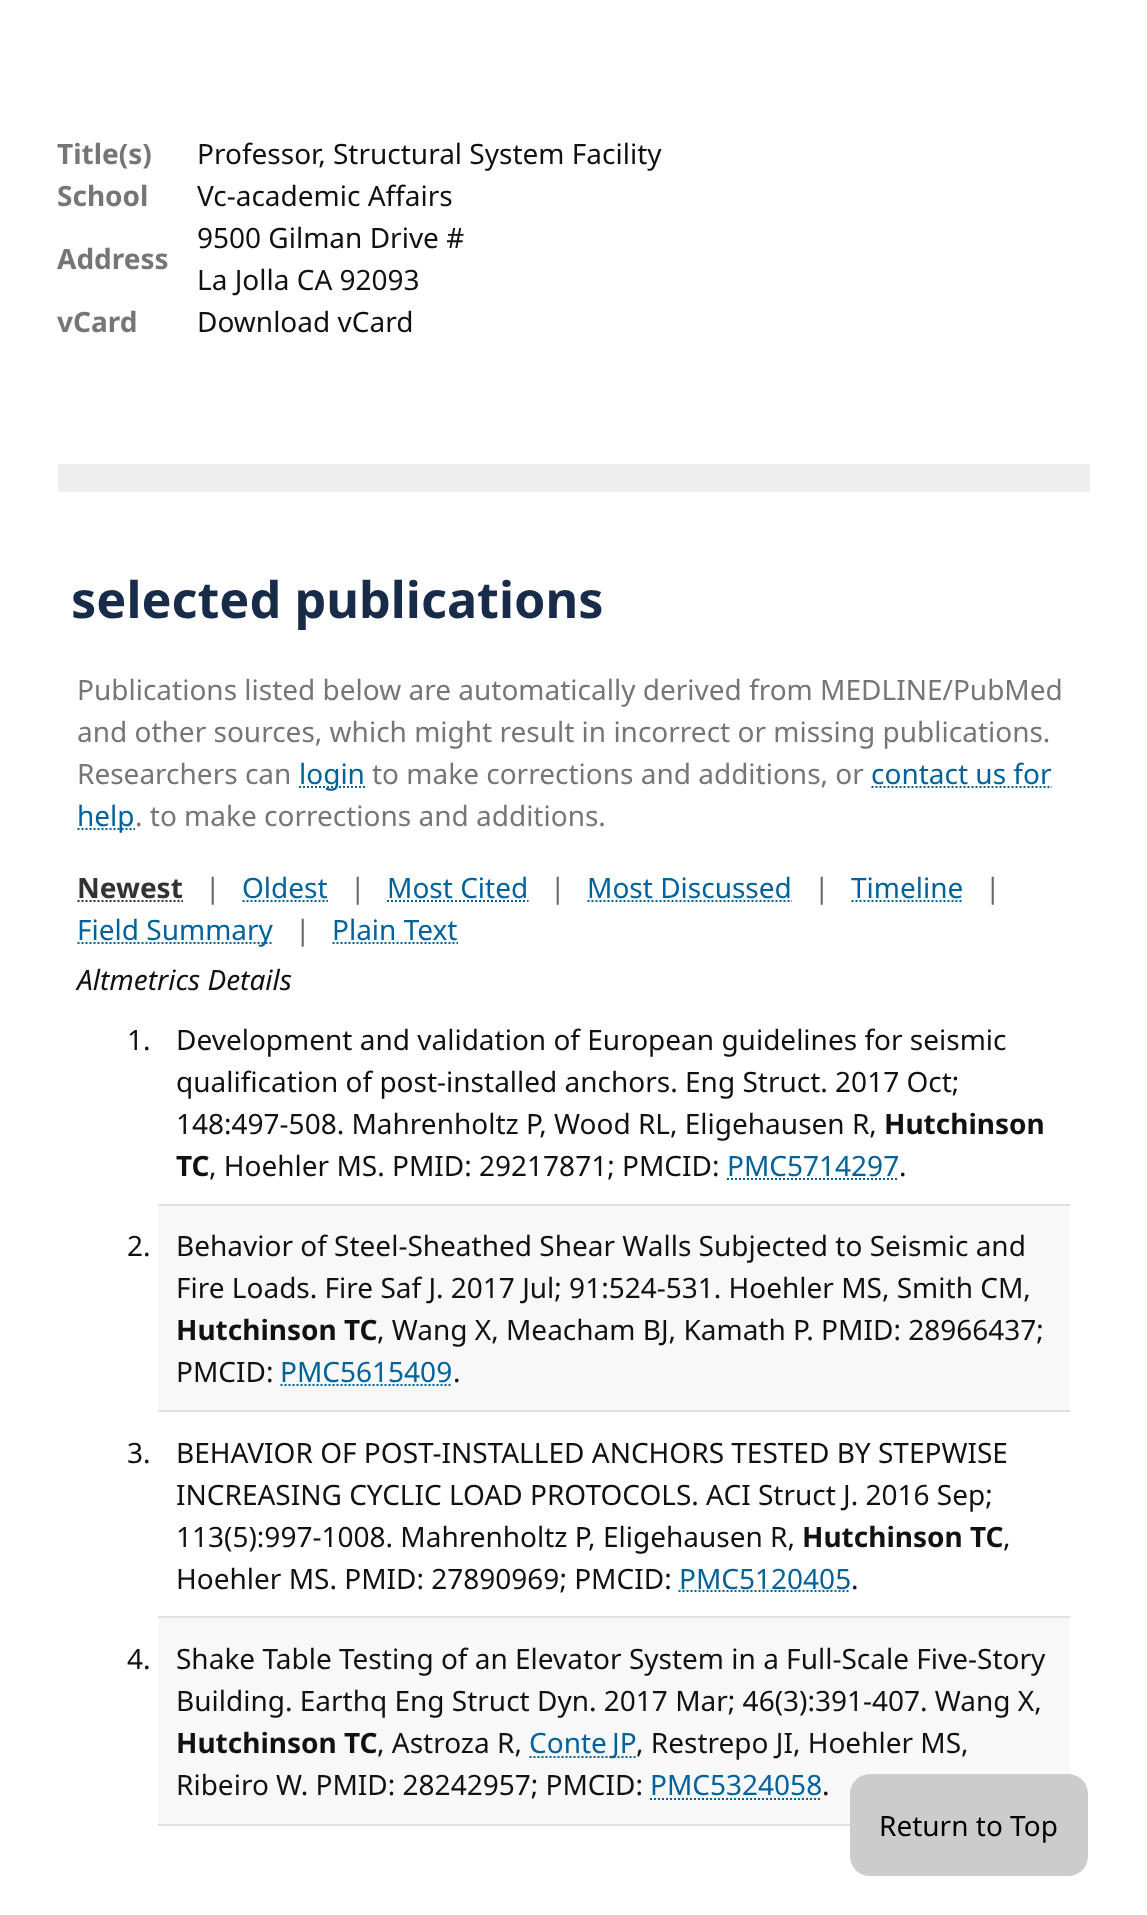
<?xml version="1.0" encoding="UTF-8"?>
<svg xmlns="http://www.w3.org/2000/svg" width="1147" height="1915">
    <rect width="100%" height="100%" fill="#FFFFFF"/>
    <text x="57" y="164" font-family="Noto Sans" font-size="28" font-weight="700" fill="#747678">Title(s)</text>
    <text x="197" y="164" font-family="Noto Sans" font-size="28" fill="#111111">Professor, Structural System Facility</text>
    <text x="57" y="206" font-family="Noto Sans" font-size="28" font-weight="700" fill="#747678">School</text>
    <text x="197" y="206" font-family="Noto Sans" font-size="28" fill="#111111">Vc-academic Affairs</text>
    <text x="57" y="269" font-family="Noto Sans" font-size="28" font-weight="700" fill="#747678">Address</text>
    <text font-family="Noto Sans" font-size="28" fill="#111111">
        <tspan x="197" y="248">9500 Gilman Drive #</tspan>
        <tspan x="197" y="290">La Jolla CA 92093</tspan>
    </text>
    <text x="57" y="332" font-family="Noto Sans" font-size="28" font-weight="700" fill="#747678">vCard</text>
    <text x="197" y="332" font-family="Noto Sans" font-size="28" fill="#111111">Download vCard</text>
    <rect x="58" y="464" width="1032" height="28" fill="#EEEEEE"/>
    <text x="71" y="618" font-family="Noto Sans" font-size="50.4" font-weight="700" fill="#182B49">selected publications</text>
    <text font-family="Noto Sans" font-size="28" fill="#747678">
        <tspan x="77" y="700">Publications listed below are automatically derived from MEDLINE/PubMed</tspan>
        <tspan x="77" y="742">and other sources, which might result in incorrect or missing publications.</tspan>
        <tspan x="77" y="784">Researchers can</tspan>
    </text>
    <path d="M 299 787 H 365" fill="none" stroke="#00629B" stroke-width="2" stroke-dasharray="2 2"/>
    <text x="299" y="784" font-family="Noto Sans" font-size="28" fill="#00629B">login</text>
    <text x="372" y="784" font-family="Noto Sans" font-size="28" fill="#747678">to make corrections and additions, or</text>
    <text x="871" y="784" font-family="Noto Sans" font-size="28" fill="#00629B">contact us for</text>
    <path d="M 871.5 787 H 1052" fill="none" stroke="#00629B" stroke-width="2" stroke-dasharray="2 2"/>
    <path d="M 77.5 829 H 135" fill="none" stroke="#00629B" stroke-width="2" stroke-dasharray="2 2"/>
    <text x="77" y="826" font-family="Noto Sans" font-size="28" fill="#00629B">help</text>
    <text x="135" y="826" font-family="Noto Sans" font-size="28" fill="#747678">. to make corrections and additions.</text>
    <text x="77" y="898" font-family="Noto Sans" font-size="28" font-weight="700" fill="#333333">Newest</text>
    <path d="M 77.5 901 H 183" fill="none" stroke="#333333" stroke-width="2" stroke-dasharray="2 2"/>
    <text x="205" y="898" font-family="Noto Sans" font-size="28" fill="#666666">|</text>
    <text x="242" y="898" font-family="Noto Sans" font-size="28" fill="#00629B">Oldest</text>
    <path d="M 242.5 901 H 328" fill="none" stroke="#00629B" stroke-width="2" stroke-dasharray="2 2"/>
    <text x="350" y="898" font-family="Noto Sans" font-size="28" fill="#666666">|</text>
    <text x="387" y="898" font-family="Noto Sans" font-size="28" fill="#00629B">Most Cited</text>
    <path d="M 387 901 H 528.5" fill="none" stroke="#00629B" stroke-width="2" stroke-dasharray="2 2"/>
    <text x="550" y="898" font-family="Noto Sans" font-size="28" fill="#666666">|</text>
    <text x="587" y="898" font-family="Noto Sans" font-size="28" fill="#00629B">Most Discussed</text>
    <path d="M 587.5 901 H 792" fill="none" stroke="#00629B" stroke-width="2" stroke-dasharray="2 2"/>
    <text x="814" y="898" font-family="Noto Sans" font-size="28" fill="#666666">|</text>
    <text x="851" y="898" font-family="Noto Sans" font-size="28" fill="#00629B">Timeline</text>
    <path d="M 851.5 901 H 963.5" fill="none" stroke="#00629B" stroke-width="2" stroke-dasharray="2 2"/>
    <text x="985" y="898" font-family="Noto Sans" font-size="28" fill="#666666">|</text>
    <path d="M 77.5 943 H 273.5" fill="none" stroke="#00629B" stroke-width="2" stroke-dasharray="2 2"/>
    <text x="77" y="940" font-family="Noto Sans" font-size="28" fill="#00629B">Field Summary</text>
    <text x="295" y="940" font-family="Noto Sans" font-size="28" fill="#666666">|</text>
    <text x="332" y="940" font-family="Noto Sans" font-size="28" fill="#00629B">Plain Text</text>
    <path d="M 332.5 943 H 458" fill="none" stroke="#00629B" stroke-width="2" stroke-dasharray="2 2"/>
    <text x="77" y="990" font-family="Noto Sans" font-size="28" font-style="italic" fill="#111111">Altmetrics Details</text>
    <text x="127" y="1050" font-family="Noto Sans" font-size="28" fill="#111111">1.</text>
    <text font-family="Noto Sans" font-size="28" fill="#111111">
        <tspan x="176" y="1050">Development and validation of European guidelines for seismic</tspan>
        <tspan x="176" y="1092">qualification of post-installed anchors. Eng Struct. 2017 Oct;</tspan>
        <tspan x="176" y="1134">148:497-508. Mahrenholtz P, Wood RL, Eligehausen R,</tspan>
    </text>
    <text x="884" y="1134" font-family="Noto Sans" font-size="28" font-weight="700" fill="#111111">Hutchinson</text>
    <text x="176" y="1176" font-family="Noto Sans" font-size="28" font-weight="700" fill="#111111">TC</text>
    <text x="209" y="1176" font-family="Noto Sans" font-size="28" fill="#111111">, Hoehler MS. PMID: 29217871; PMCID:</text>
    <text x="727" y="1176" font-family="Noto Sans" font-size="28" fill="#00629B">PMC5714297</text>
    <text x="899" y="1176" font-family="Noto Sans" font-size="28" fill="#111111">.</text>
    <path d="M 727 1179 H 899" fill="none" stroke="#00629B" stroke-width="2" stroke-dasharray="2 2"/>
    <rect x="158" y="1206" width="912" height="204" fill="#F8F8F8"/>
    <rect x="158" y="1204" width="912" height="2" fill="#E0E0E0"/>
    <rect x="158" y="1410" width="912" height="2" fill="#E0E0E0"/>
    <text x="127" y="1256" font-family="Noto Sans" font-size="28" fill="#111111">2.</text>
    <text font-family="Noto Sans" font-size="28" fill="#111111">
        <tspan x="176" y="1256">Behavior of Steel-Sheathed Shear Walls Subjected to Seismic and</tspan>
        <tspan x="176" y="1298">Fire Loads. Fire Saf J. 2017 Jul; 91:524-531. Hoehler MS, Smith CM,</tspan>
    </text>
    <text x="176" y="1340" font-family="Noto Sans" font-size="28" font-weight="700" fill="#111111">Hutchinson TC</text>
    <text x="377" y="1340" font-family="Noto Sans" font-size="28" fill="#111111">, Wang X, Meacham BJ, Kamath P. PMID: 28966437;</text>
    <text x="176" y="1382" font-family="Noto Sans" font-size="28" fill="#111111">PMCID:</text>
    <text x="280" y="1382" font-family="Noto Sans" font-size="28" fill="#00629B">PMC5615409</text>
    <text x="453" y="1382" font-family="Noto Sans" font-size="28" fill="#111111">.</text>
    <path d="M 280.5 1385 H 452.5" fill="none" stroke="#00629B" stroke-width="2" stroke-dasharray="2 2"/>
    <text x="127" y="1463" font-family="Noto Sans" font-size="28" fill="#111111">3.</text>
    <text font-family="Noto Sans" font-size="28" fill="#111111">
        <tspan x="176" y="1463">BEHAVIOR OF POST-INSTALLED ANCHORS TESTED BY STEPWISE</tspan>
        <tspan x="176" y="1505">INCREASING CYCLIC LOAD PROTOCOLS. ACI Struct J. 2016 Sep;</tspan>
        <tspan x="176" y="1547">113(5):997-1008. Mahrenholtz P, Eligehausen R,</tspan>
    </text>
    <text x="802" y="1547" font-family="Noto Sans" font-size="28" font-weight="700" fill="#111111">Hutchinson TC</text>
    <text x="1003" y="1547" font-family="Noto Sans" font-size="28" fill="#111111">,</text>
    <text x="176" y="1589" font-family="Noto Sans" font-size="28" fill="#111111">Hoehler MS. PMID: 27890969; PMCID:</text>
    <text x="679" y="1589" font-family="Noto Sans" font-size="28" fill="#00629B">PMC5120405</text>
    <text x="851" y="1589" font-family="Noto Sans" font-size="28" fill="#111111">.</text>
    <path d="M 678.5 1591 H 850.5" fill="none" stroke="#00629B" stroke-width="2" stroke-dasharray="2 2"/>
    <rect x="158" y="1618" width="912" height="206" fill="#F8F8F8"/>
    <rect x="158" y="1616" width="912" height="2" fill="#E0E0E0"/>
    <rect x="158" y="1824" width="692" height="2" fill="#E0E0E0"/>
    <text x="127" y="1669" font-family="Noto Sans" font-size="28" fill="#111111">4.</text>
    <text font-family="Noto Sans" font-size="28" fill="#111111">
        <tspan x="176" y="1669">Shake Table Testing of an Elevator System in a Full-Scale Five-Story</tspan>
        <tspan x="176" y="1711">Building. Earthq Eng Struct Dyn. 2017 Mar; 46(3):391-407. Wang X,</tspan>
    </text>
    <text x="176" y="1753" font-family="Noto Sans" font-size="28" font-weight="700" fill="#111111">Hutchinson TC</text>
    <text x="377" y="1753" font-family="Noto Sans" font-size="28" fill="#111111">, Astroza R,</text>
    <path d="M 529.5 1757 H 635.5" fill="none" stroke="#00629B" stroke-width="2" stroke-dasharray="2 2"/>
    <text x="529" y="1753" word-spacing="-2" font-family="Noto Sans" font-size="28" fill="#00629B">Conte JP</text>
    <text x="636" y="1753" font-family="Noto Sans" font-size="28" fill="#111111">, Restrepo JI, Hoehler MS,</text>
    <text x="176" y="1795" font-family="Noto Sans" font-size="28" fill="#111111">Ribeiro W. PMID: 28242957; PMCID:</text>
    <text x="650" y="1795" font-family="Noto Sans" font-size="28" fill="#00629B">PMC5324058</text>
    <text x="822" y="1795" font-family="Noto Sans" font-size="28" fill="#111111">.</text>
    <path d="M 650 1799 H 822" fill="none" stroke="#00629B" stroke-width="2" stroke-dasharray="2 2"/>
    <rect x="850" y="1774" width="238" height="102" rx="20" fill="#CCCCCC"/>
    <text x="879" y="1836" font-family="Noto Sans" font-size="28" fill="#000000">Return to Top</text>
</svg>
